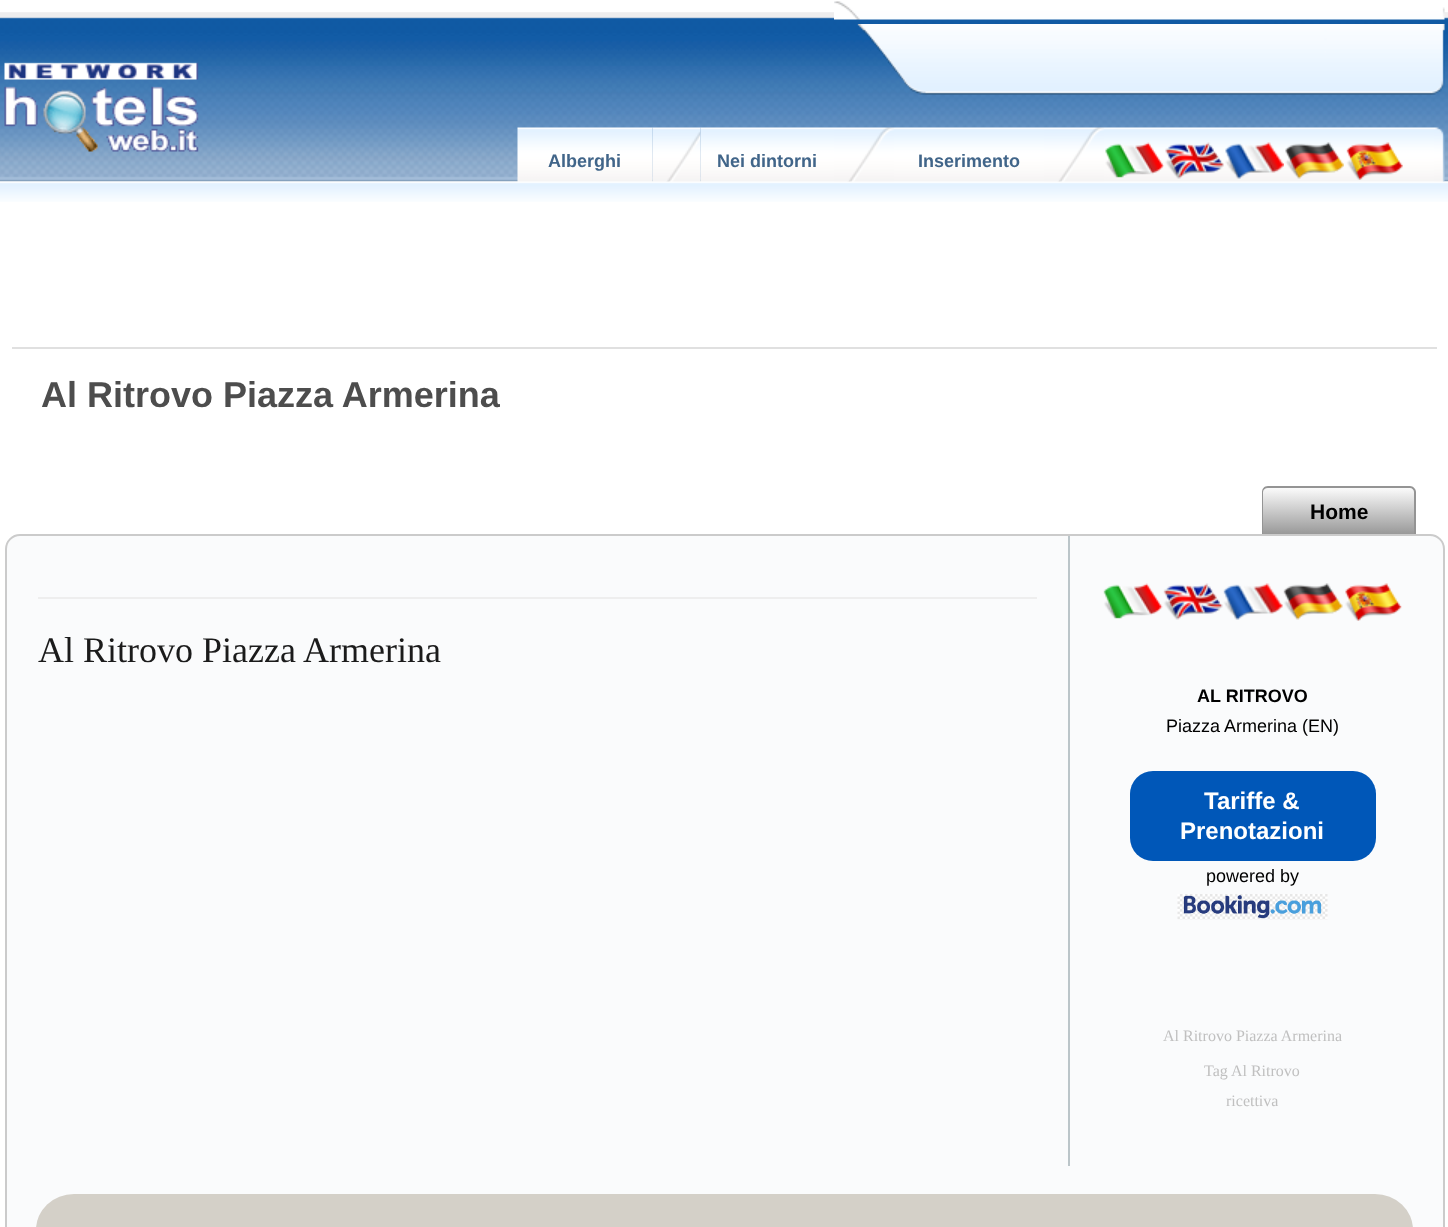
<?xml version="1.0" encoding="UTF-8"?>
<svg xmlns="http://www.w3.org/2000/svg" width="1448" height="1227">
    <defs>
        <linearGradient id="g1" gradientUnits="userSpaceOnUse" x1="1339" y1="486" x2="1339" y2="534"><stop offset="0" stop-color="#FFFFFF"/><stop offset="1" stop-color="#999999"/></linearGradient>
    </defs>
    <rect width="100%" height="100%" fill="#FFFFFF"/>
    <image x="0" y="12" width="1448" height="170" href="img_01.png"/>
    <image x="834" y="1" width="611" height="19" href="img_02.png"/>
    <image x="4" y="62" width="195" height="90" href="img_03.png"/>
    <image x="857" y="24" width="588" height="71" href="img_04.png"/>
    <image x="517" y="127" width="136" height="55" href="img_05.png"/>
    <text x="548" y="167" font-family="Liberation Sans" font-size="18" font-weight="700" fill="#416589">Alberghi</text>
    <image x="652" y="127" width="49" height="55" href="img_06.png"/>
    <image x="700" y="127" width="134" height="55" href="img_07.png"/>
    <text x="717" y="167" font-family="Liberation Sans" font-size="18" font-weight="700" fill="#416589">Nei dintorni</text>
    <image x="834" y="127" width="60" height="55" href="img_08.png"/>
    <image x="894" y="127" width="150" height="55" href="img_09.png"/>
    <text x="918" y="167" font-family="Liberation Sans" font-size="18" font-weight="700" fill="#416589">Inserimento</text>
    <image x="1044" y="127" width="60" height="55" href="img_10.png"/>
    <image x="1104" y="127" width="330" height="55" href="img_11.png"/>
    <image x="1105" y="142" width="59" height="36" href="img_12.png"/>
    <image x="1165" y="142" width="59" height="37" href="img_13.png"/>
    <image x="1225" y="142" width="59" height="37" href="img_14.png"/>
    <image x="1285" y="142" width="59" height="37" href="img_15.png"/>
    <image x="1346" y="142" width="57" height="38" href="img_16.png"/>
    <image x="1434" y="127" width="11" height="55" href="img_17.png"/>
    <image x="0" y="181" width="1448" height="21" href="img_18.png"/>
    <rect x="12" y="347" width="1425" height="2" fill="#E0E0E0"/>
    <text x="41" y="407" font-family="Liberation Sans" font-size="36" font-weight="700" fill="#4D4D4D">Al Ritrovo Piazza Armerina</text>
    <path d="M 1268 486 H 1410 C 1413.5 486 1416 488.5 1416 492 V 534 H 1262 V 492 C 1262 488.5 1264.5 486 1268 486 Z" fill="url(#g1)"/>
    <path d="M 1268 486 H 1410 C 1413 486 1416 489 1416 492 V 534 H 1262 V 492 C 1262 489 1264 486 1268 486 Z M 1268 488 H 1410 C 1412 488 1414 490 1414 492 V 534 H 1263 V 492 C 1263 490 1265 488 1268 488 Z" fill="#949494" fill-rule="evenodd"/>
    <text x="1310" y="519" font-family="Liberation Sans" font-size="21" font-weight="700" fill="#000000">Home</text>
    <rect x="6" y="535" width="1438" height="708" rx="14" fill="#FAFBFC" stroke="#CBCBCB" stroke-width="2"/>
    <rect x="38" y="597" width="999" height="2" fill="#EEEEEE"/>
    <text x="38" y="662" font-family="Liberation Serif" font-size="36" fill="#1B1B1B">Al Ritrovo Piazza Armerina</text>
    <rect x="1068" y="536" width="2" height="630" fill="#BBC5C9"/>
    <image x="1103" y="583" width="60" height="36" href="img_19.png"/>
    <image x="1163" y="583" width="60" height="37" href="img_20.png"/>
    <image x="1223" y="583" width="60" height="37" href="img_21.png"/>
    <image x="1283" y="583" width="60" height="37" href="img_22.png"/>
    <image x="1345" y="583" width="57" height="38" href="img_23.png"/>
    <text x="1197" y="702" font-family="Liberation Sans" font-size="18" font-weight="700" fill="#000000">AL RITROVO</text>
    <text x="1166" y="732" font-family="Liberation Sans" font-size="18" fill="#000000">Piazza Armerina (EN)</text>
    <rect x="1130" y="771" width="246" height="90" rx="23" fill="#0057B8"/>
    <text x="1204" y="809" font-family="Liberation Sans" font-size="24" font-weight="700" fill="#FFFFFF">Tariffe &amp;</text>
    <text x="1180" y="839" font-family="Liberation Sans" font-size="24" font-weight="700" fill="#FFFFFF">Prenotazioni</text>
    <text x="1206" y="882" font-family="Liberation Sans" font-size="18" fill="#000000">powered by</text>
    <image x="1177" y="894" width="151" height="26" href="img_24.png"/>
    <text x="1163" y="1041" font-family="Liberation Serif" font-size="16" fill="#C0C0C0">Al Ritrovo Piazza Armerina</text>
    <text x="1204" y="1076" font-family="Liberation Serif" font-size="16" fill="#C0C0C0">Tag Al Ritrovo</text>
    <text x="1226" y="1106" font-family="Liberation Serif" font-size="16" fill="#C0C0C0">ricettiva</text>
    <rect x="36" y="1194" width="1377" height="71" rx="38" fill="#D4D0C8"/>
</svg>
